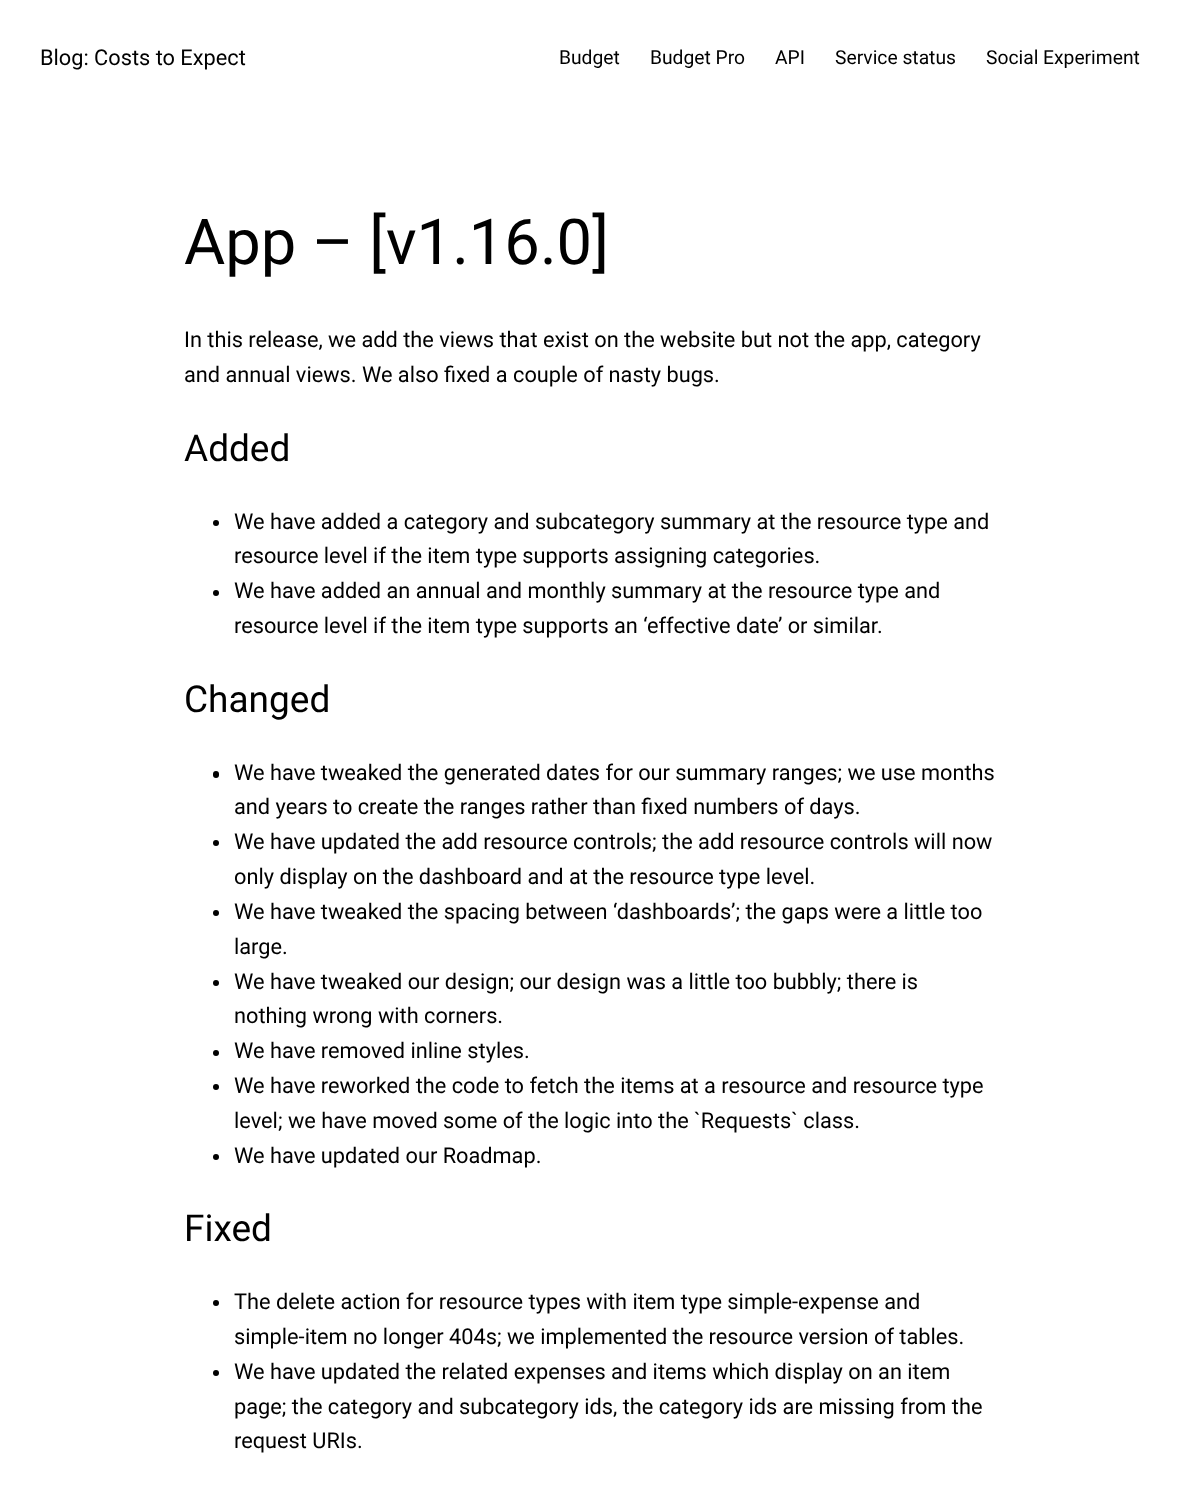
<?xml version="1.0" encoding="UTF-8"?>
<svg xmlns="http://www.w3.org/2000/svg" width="1179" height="1485">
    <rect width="100%" height="100%" fill="#FFFFFF"/>
    <text x="40" y="65" font-family="Roboto" font-size="21.75" fill="#000000">Blog: Costs to Expect</text>
    <text x="559" y="64" font-family="Roboto" font-size="19.25" fill="#000000">Budget</text>
    <text x="650" y="64" font-family="Roboto" font-size="19.25" fill="#000000">Budget Pro</text>
    <text x="775" y="64" font-family="Roboto" font-size="19.25" fill="#000000">API</text>
    <text x="835" y="64" font-family="Roboto" font-size="19.25" fill="#000000">Service status</text>
    <text x="986" y="64" font-family="Roboto" font-size="19.25" fill="#000000">Social Experiment</text>
    <text x="184" y="264" font-family="Roboto" font-size="63.25" fill="#000000">App – [v1.16.0]</text>
    <text font-family="Roboto" font-size="21.75" fill="#000000">
        <tspan x="184" y="347">In this release, we add the views that exist on the website but not the app, category</tspan>
        <tspan x="184" y="382">and annual views. We also fixed a couple of nasty bugs.</tspan>
    </text>
    <text x="184" y="461" font-family="Roboto" font-size="37" fill="#000000">Added</text>
    <circle cx="216" cy="523" r="3" fill="#000000"/>
    <text font-family="Roboto" font-size="21.75" fill="#000000">
        <tspan x="234" y="529">We have added a category and subcategory summary at the resource type and</tspan>
        <tspan x="234" y="563">resource level if the item type supports assigning categories.</tspan>
    </text>
    <circle cx="216" cy="593" r="3" fill="#000000"/>
    <text font-family="Roboto" font-size="21.75" fill="#000000">
        <tspan x="234" y="598">We have added an annual and monthly summary at the resource type and</tspan>
        <tspan x="234" y="633">resource level if the item type supports an ‘effective date’ or similar.</tspan>
    </text>
    <text x="184" y="712" font-family="Roboto" font-size="37" fill="#000000">Changed</text>
    <rect x="213" y="771" width="6" height="7" rx="3" fill="#000000"/>
    <text font-family="Roboto" font-size="21.75" fill="#000000">
        <tspan x="234" y="780">We have tweaked the generated dates for our summary ranges; we use months</tspan>
        <tspan x="234" y="814">and years to create the ranges rather than fixed numbers of days.</tspan>
    </text>
    <circle cx="216" cy="843" r="3" fill="#000000"/>
    <text font-family="Roboto" font-size="21.75" fill="#000000">
        <tspan x="234" y="849">We have updated the add resource controls; the add resource controls will now</tspan>
        <tspan x="234" y="884">only display on the dashboard and at the resource type level.</tspan>
    </text>
    <circle cx="216" cy="913" r="3" fill="#000000"/>
    <text font-family="Roboto" font-size="21.75" fill="#000000">
        <tspan x="234" y="919">We have tweaked the spacing between ‘dashboards’; the gaps were a little too</tspan>
        <tspan x="234" y="954">large.</tspan>
    </text>
    <circle cx="216" cy="983" r="3" fill="#000000"/>
    <text font-family="Roboto" font-size="21.75" fill="#000000">
        <tspan x="234" y="989">We have tweaked our design; our design was a little too bubbly; there is</tspan>
        <tspan x="234" y="1023">nothing wrong with corners.</tspan>
    </text>
    <circle cx="216" cy="1053" r="3" fill="#000000"/>
    <text x="234" y="1058" font-family="Roboto" font-size="21.75" fill="#000000">We have removed inline styles.</text>
    <circle cx="216" cy="1087" r="3" fill="#000000"/>
    <text font-family="Roboto" font-size="21.75" fill="#000000">
        <tspan x="234" y="1093">We have reworked the code to fetch the items at a resource and resource type</tspan>
        <tspan x="234" y="1128">level; we have moved some of the logic into the `Requests` class.</tspan>
    </text>
    <circle cx="216" cy="1157" r="3" fill="#000000"/>
    <text x="234" y="1163" font-family="Roboto" font-size="21.75" fill="#000000">We have updated our Roadmap.</text>
    <text x="184" y="1241" font-family="Roboto" font-size="37" fill="#000000">Fixed</text>
    <circle cx="216" cy="1303" r="3" fill="#000000"/>
    <text font-family="Roboto" font-size="21.75" fill="#000000">
        <tspan x="234" y="1309">The delete action for resource types with item type simple-expense and</tspan>
        <tspan x="234" y="1344">simple-item no longer 404s; we implemented the resource version of tables.</tspan>
    </text>
    <circle cx="216" cy="1373" r="3" fill="#000000"/>
    <text font-family="Roboto" font-size="21.75" fill="#000000">
        <tspan x="234" y="1379">We have updated the related expenses and items which display on an item</tspan>
        <tspan x="234" y="1414">page; the category and subcategory ids, the category ids are missing from the</tspan>
        <tspan x="234" y="1448">request URIs.</tspan>
    </text>
</svg>
